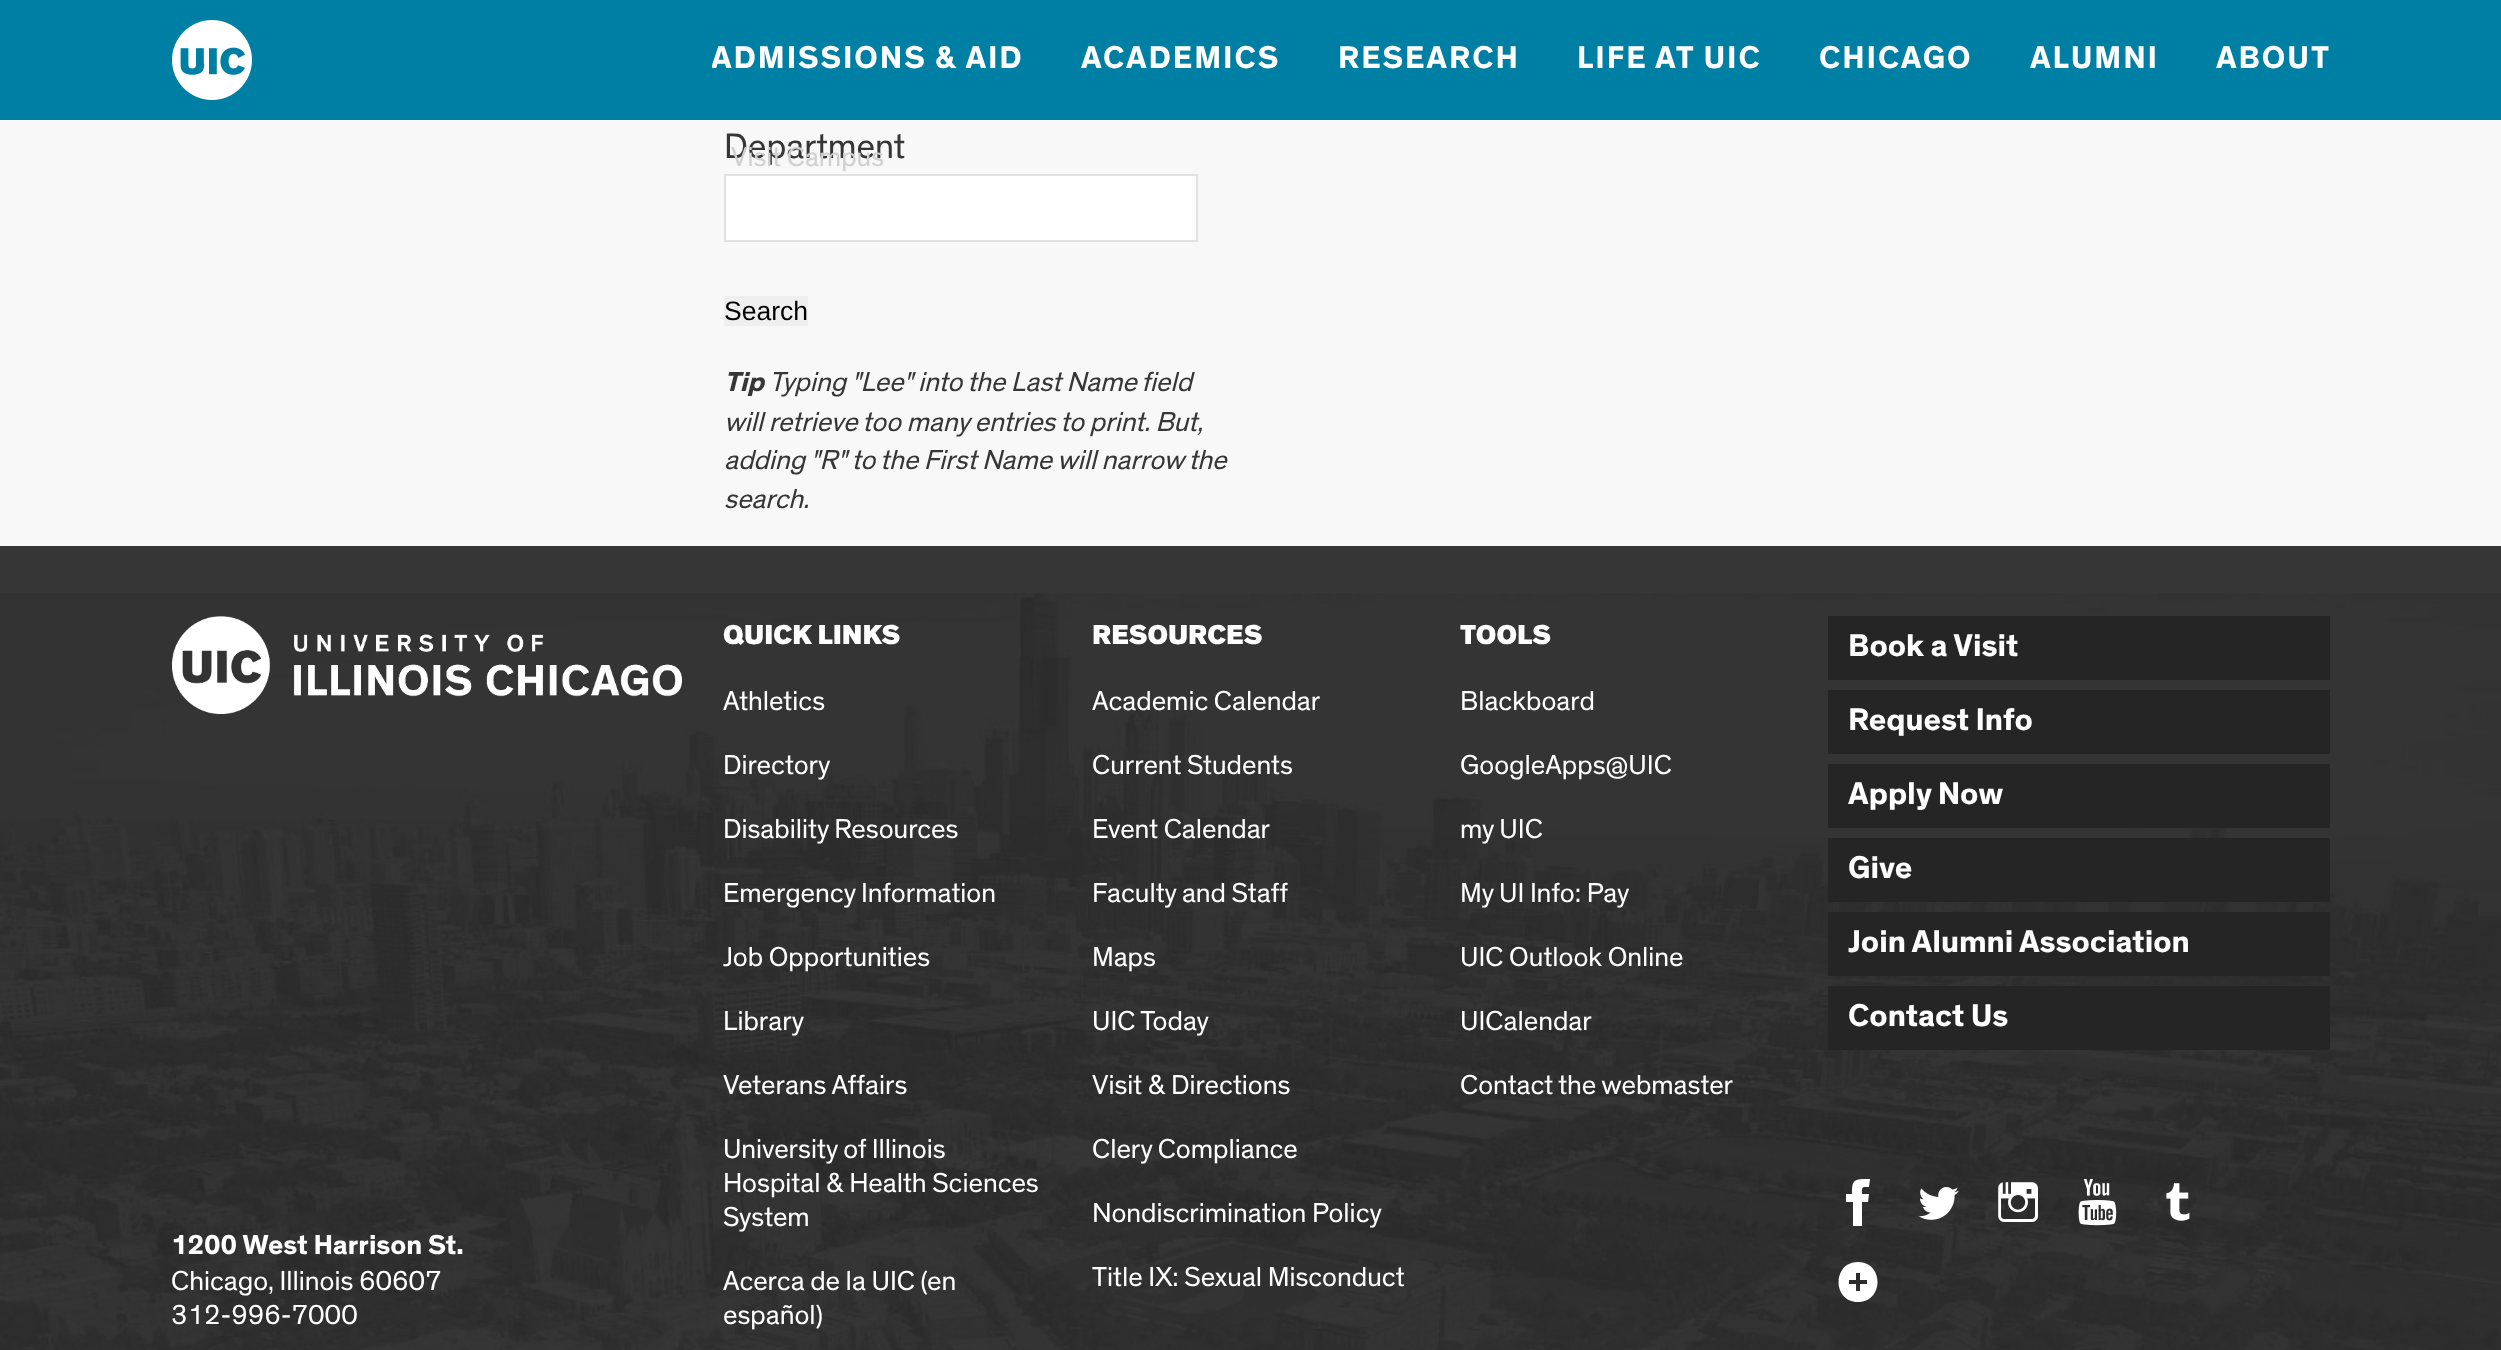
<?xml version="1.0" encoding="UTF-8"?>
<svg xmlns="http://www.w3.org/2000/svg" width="2501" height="1350">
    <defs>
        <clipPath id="clip1"><rect x="712" y="0" width="312" height="120"/></clipPath>
    </defs>
    <rect width="100%" height="100%" fill="#F8F8F8"/>
    <rect x="0" y="0" width="2501" height="120" fill="#007FA5"/>
    <image x="172" y="20" width="80" height="80" href="img_01.png"/>
    <g clip-path="url(#clip1)">
        <text x="711" y="68" font-family="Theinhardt" font-size="32" font-weight="700" letter-spacing="1.9" fill="#FFFFFF">ADMISSIONS &amp; AID</text>
    </g>
    <text x="724" y="158" font-family="Theinhardt" font-size="36" fill="#363636">Department</text>
    <text x="731" y="166" font-family="Theinhardt" font-size="28" fill="#D0D0D0">Visit Campus</text>
    <text x="1081" y="68" font-family="Theinhardt" font-size="32" font-weight="700" letter-spacing="1.9" fill="#FFFFFF">ACADEMICS</text>
    <text x="1338" y="68" font-family="Theinhardt" font-size="32" font-weight="700" letter-spacing="1.9" fill="#FFFFFF">RESEARCH</text>
    <text x="1577" y="68" font-family="Theinhardt" font-size="32" font-weight="700" letter-spacing="1.9" fill="#FFFFFF">LIFE AT UIC</text>
    <text x="1819" y="68" font-family="Theinhardt" font-size="32" font-weight="700" letter-spacing="1.9" fill="#FFFFFF">CHICAGO</text>
    <text x="2030" y="68" font-family="Theinhardt" font-size="32" font-weight="700" letter-spacing="1.9" fill="#FFFFFF">ALUMNI</text>
    <text x="2216" y="68" font-family="Theinhardt" font-size="32" font-weight="700" letter-spacing="1.9" fill="#FFFFFF">ABOUT</text>
    <rect x="725" y="175" width="472" height="66" fill="#FFFFFF" stroke="#E1E1E1" stroke-width="2"/>
    <rect x="724" y="296" width="84" height="30" fill="#EFEFEF"/>
    <text x="724" y="320" font-family="Liberation Sans" font-size="26.5" fill="#000000">Search</text>
    <text x="724" y="391" font-family="Theinhardt" font-size="28" font-weight="700" font-style="italic" fill="#363636">Tip</text>
    <text x="769" y="391" font-family="Theinhardt" font-size="28" font-style="italic" fill="#363636">Typing "Lee" into the Last Name</text>
    <text x="1141" y="391" font-family="Theinhardt" font-size="28" font-style="italic" fill="#363636">field</text>
    <text font-family="Theinhardt" font-size="28" font-style="italic" fill="#363636">
        <tspan x="724" y="431">will retrieve too many entries to print. But,</tspan>
        <tspan x="724" y="469">adding "R" to the First Name will narrow the</tspan>
        <tspan x="724" y="508">search.</tspan>
    </text>
    <rect x="0" y="546" width="2501" height="47" fill="#363636"/>
    <image x="0" y="593" width="2501" height="757" href="img_02.png"/>
    <text x="723" y="644" font-family="Theinhardt" font-size="28" font-weight="900" fill="#FFFFFF">QUICK LINKS</text>
    <text x="723" y="710" font-family="Theinhardt" font-size="28" fill="#FFFFFF">Athletics</text>
    <text x="723" y="774" font-family="Theinhardt" font-size="28" fill="#FFFFFF">Directory</text>
    <text x="723" y="838" font-family="Theinhardt" font-size="28" fill="#FFFFFF">Disability Resources</text>
    <text x="723" y="902" font-family="Theinhardt" font-size="28" fill="#FFFFFF">Emergency Information</text>
    <text x="723" y="966" font-family="Theinhardt" font-size="28" fill="#FFFFFF">Job Opportunities</text>
    <text x="723" y="1030" font-family="Theinhardt" font-size="28" fill="#FFFFFF">Library</text>
    <text x="723" y="1094" font-family="Theinhardt" font-size="28" fill="#FFFFFF">Veterans Affairs</text>
    <text font-family="Theinhardt" font-size="28" fill="#FFFFFF">
        <tspan x="723" y="1158">University of Illinois</tspan>
        <tspan x="723" y="1192">Hospital &amp; Health Sciences</tspan>
        <tspan x="723" y="1226">System</tspan>
    </text>
    <text font-family="Theinhardt" font-size="28" fill="#FFFFFF">
        <tspan x="723" y="1290">Acerca de la UIC (en</tspan>
        <tspan x="723" y="1324">español)</tspan>
    </text>
    <text x="1092" y="644" font-family="Theinhardt" font-size="28" font-weight="900" fill="#FFFFFF">RESOURCES</text>
    <text x="1092" y="710" font-family="Theinhardt" font-size="28" fill="#FFFFFF">Academic Calendar</text>
    <text x="1092" y="774" font-family="Theinhardt" font-size="28" fill="#FFFFFF">Current Students</text>
    <text x="1092" y="838" font-family="Theinhardt" font-size="28" fill="#FFFFFF">Event Calendar</text>
    <text x="1092" y="902" font-family="Theinhardt" font-size="28" fill="#FFFFFF">Faculty and Staff</text>
    <text x="1092" y="966" font-family="Theinhardt" font-size="28" fill="#FFFFFF">Maps</text>
    <text x="1092" y="1030" font-family="Theinhardt" font-size="28" fill="#FFFFFF">UIC Today</text>
    <text x="1092" y="1094" font-family="Theinhardt" font-size="28" fill="#FFFFFF">Visit &amp; Directions</text>
    <text x="1092" y="1158" font-family="Theinhardt" font-size="28" fill="#FFFFFF">Clery Compliance</text>
    <text x="1092" y="1222" font-family="Theinhardt" font-size="28" fill="#FFFFFF">Nondiscrimination Policy</text>
    <text x="1092" y="1286" font-family="Theinhardt" font-size="28" fill="#FFFFFF">Title IX: Sexual Misconduct</text>
    <text x="1460" y="644" font-family="Theinhardt" font-size="28" font-weight="900" fill="#FFFFFF">TOOLS</text>
    <text x="1460" y="710" font-family="Theinhardt" font-size="28" fill="#FFFFFF">Blackboard</text>
    <text x="1460" y="774" font-family="Theinhardt" font-size="28" fill="#FFFFFF">GoogleApps@UIC</text>
    <text x="1460" y="838" font-family="Theinhardt" font-size="28" fill="#FFFFFF">my UIC</text>
    <text x="1460" y="902" font-family="Theinhardt" font-size="28" fill="#FFFFFF">My UI Info: Pay</text>
    <text x="1460" y="966" font-family="Theinhardt" font-size="28" fill="#FFFFFF">UIC Outlook Online</text>
    <text x="1460" y="1030" font-family="Theinhardt" font-size="28" fill="#FFFFFF">UICalendar</text>
    <text x="1460" y="1094" font-family="Theinhardt" font-size="28" fill="#FFFFFF">Contact the webmaster</text>
    <rect x="1828" y="616" width="502" height="64" fill="#252525"/>
    <text x="1848" y="656" font-family="Theinhardt" font-size="32" font-weight="700" fill="#FFFFFF">Book a Visit</text>
    <rect x="1828" y="690" width="502" height="64" fill="#252525"/>
    <text x="1848" y="730" font-family="Theinhardt" font-size="32" font-weight="700" fill="#FFFFFF">Request Info</text>
    <rect x="1828" y="764" width="502" height="64" fill="#252525"/>
    <text x="1848" y="804" font-family="Theinhardt" font-size="32" font-weight="700" fill="#FFFFFF">Apply Now</text>
    <rect x="1828" y="838" width="502" height="64" fill="#252525"/>
    <text x="1848" y="878" font-family="Theinhardt" font-size="32" font-weight="700" fill="#FFFFFF">Give</text>
    <rect x="1828" y="912" width="502" height="64" fill="#252525"/>
    <text x="1848" y="952" font-family="Theinhardt" font-size="32" font-weight="700" fill="#FFFFFF">Join Alumni Association</text>
    <rect x="1828" y="986" width="502" height="64" fill="#252525"/>
    <text x="1848" y="1026" font-family="Theinhardt" font-size="32" font-weight="700" fill="#FFFFFF">Contact Us</text>
    <path d="M 1862 1225 V 1202 H 1868 L 1869 1194 H 1862 C 1862 1187 1861 1187 1869 1187 L 1870 1179 C 1854 1179 1852 1179 1852 1194 H 1846 V 1202 H 1853 V 1226 H 1862 Z" fill="#FFFFFF"/>
    <image x="1918" y="1187" width="41" height="33" href="img_03.png"/>
    <image x="1998" y="1182" width="40" height="40" href="img_04.png"/>
    <image x="2078" y="1179" width="39" height="47" href="img_05.png"/>
    <image x="2166" y="1183" width="24" height="38" href="img_06.png"/>
    <path d="M 1858 1262 C 1832 1262 1832 1302 1858 1302 C 1884 1302 1884 1262 1858 1262 Z M 1867 1284 H 1860 V 1291 H 1856 V 1284 H 1849 V 1280 H 1856 V 1273 H 1860 V 1280 H 1867 Z" fill="#FFFFFF"/>
    <image x="172" y="616" width="510" height="98" href="img_07.png"/>
    <text x="171" y="1254" font-family="Theinhardt" font-size="28" font-weight="700" fill="#FFFFFF">1200 West Harrison St.</text>
    <text font-family="Theinhardt" font-size="28" fill="#FFFFFF">
        <tspan x="171" y="1290">Chicago, Illinois 60607</tspan>
        <tspan x="171" y="1324">312-996-7000</tspan>
    </text>
</svg>
